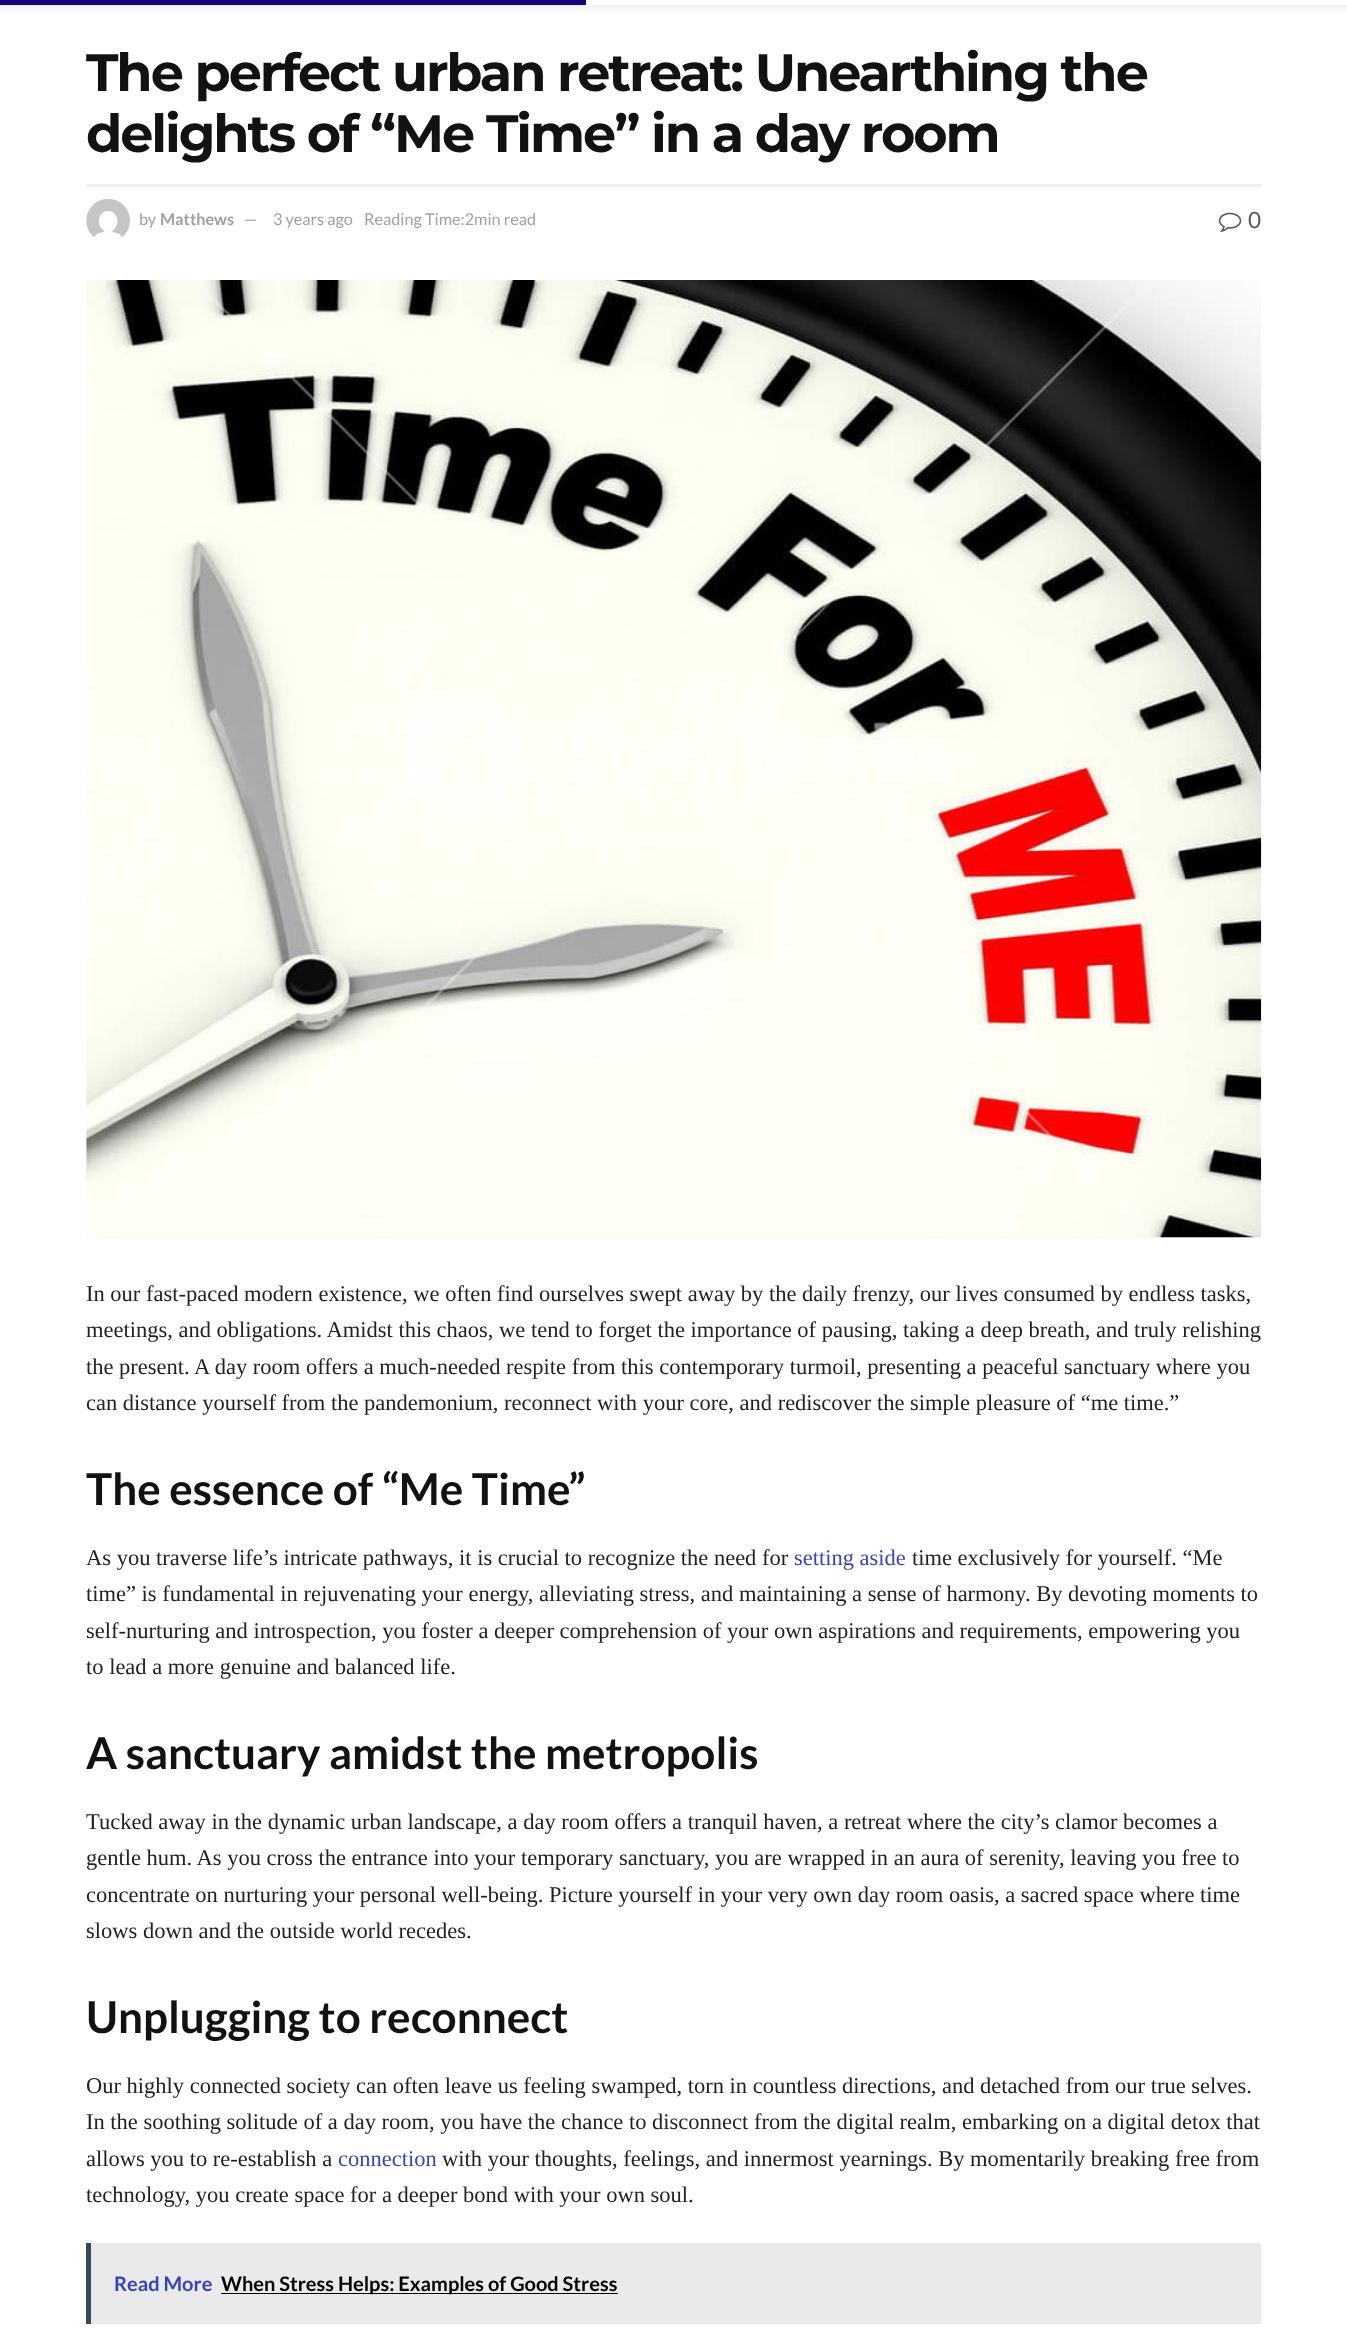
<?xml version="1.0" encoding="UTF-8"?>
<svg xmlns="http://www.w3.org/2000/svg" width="1347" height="2339">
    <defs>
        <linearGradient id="g1" gradientUnits="userSpaceOnUse" x1="674" y1="5" x2="674" y2="15"><stop offset="0" stop-color="#F2F2F2"/><stop offset="1" stop-color="#FFFFFF"/></linearGradient>
    </defs>
    <rect width="100%" height="100%" fill="#FFFFFF"/>
    <rect x="0" y="0" width="586" height="5" fill="#150578"/>
    <rect x="0" y="5" width="1347" height="8" fill="url(#g1)"/>
    <text font-family="Montserrat" font-size="52.5" font-weight="700" letter-spacing="-2.1" fill="#121212">
        <tspan x="86" y="91">The perfect urban retreat: Unearthing the</tspan>
        <tspan x="86" y="152">delights of “Me Time” in a day room</tspan>
    </text>
    <rect x="86" y="184" width="1175" height="3" fill="#EEEEEE"/>
    <image x="86" y="199" width="44" height="38" href="img_01.png"/>
    <text x="139" y="225" font-family="Lato" font-size="16.25" fill="#A0A0A0">by</text>
    <text x="160" y="225" font-family="Lato" font-size="16.25" font-weight="700" fill="#A0A0A0">Matthews</text>
    <text x="244" y="225" font-family="Lato" font-size="16.25" fill="#A0A0A0">—</text>
    <text x="273" y="225" font-family="Lato" font-size="16.25" fill="#A0A0A0">3 years ago</text>
    <text x="364" y="225" font-family="Lato" font-size="16.25" fill="#A0A0A0">Reading Time:2min read</text>
    <image x="1218" y="212" width="24" height="20" href="img_02.png"/>
    <text x="1248" y="228" font-family="Lato" font-size="22.5" fill="#5A5A5A">0</text>
    <rect x="86" y="280" width="1175" height="958" fill="#F7F7F7"/>
    <image x="86" y="280" width="1176" height="958" href="img_03.png"/>
    <text font-family="Liberation Serif" font-size="22.5" fill="#212121">
        <tspan x="86" y="1301">In our fast-paced modern existence, we often find ourselves swept away by the daily frenzy, our lives consumed by endless tasks,</tspan>
        <tspan x="86" y="1337">meetings, and obligations. Amidst this chaos, we tend to forget the importance of pausing, taking a deep breath, and truly relishing</tspan>
        <tspan x="86" y="1374">the present. A day room offers a much-needed respite from this contemporary turmoil, presenting a peaceful sanctuary where you</tspan>
        <tspan x="86" y="1410">can distance yourself from the pandemonium, reconnect with your core, and rediscover the simple pleasure of “me time.”</tspan>
    </text>
    <text x="86" y="1505" font-family="Lato" font-size="44" font-weight="700" fill="#121212">The essence of “Me Time”</text>
    <text x="86" y="1565" font-family="Liberation Serif" font-size="22.5" fill="#212121">As you traverse life’s intricate pathways, it is crucial to recognize the need for</text>
    <text x="794" y="1565" font-family="Liberation Serif" font-size="22.5" fill="#3943B7">setting aside</text>
    <text x="912" y="1565" font-family="Liberation Serif" font-size="22.5" fill="#212121">time exclusively for yourself. “Me</text>
    <text font-family="Liberation Serif" font-size="22.5" fill="#212121">
        <tspan x="86" y="1601">time” is fundamental in rejuvenating your energy, alleviating stress, and maintaining a sense of harmony. By devoting moments to</tspan>
        <tspan x="86" y="1638">self-nurturing and introspection, you foster a deeper comprehension of your own aspirations and requirements, empowering you</tspan>
        <tspan x="86" y="1674">to lead a more genuine and balanced life.</tspan>
    </text>
    <text x="86" y="1769" font-family="Lato" font-size="44" font-weight="700" fill="#121212">A sanctuary amidst the metropolis</text>
    <text font-family="Liberation Serif" font-size="22.5" fill="#212121">
        <tspan x="86" y="1829">Tucked away in the dynamic urban landscape, a day room offers a tranquil haven, a retreat where the city’s clamor becomes a</tspan>
        <tspan x="86" y="1865">gentle hum. As you cross the entrance into your temporary sanctuary, you are wrapped in an aura of serenity, leaving you free to</tspan>
        <tspan x="86" y="1902">concentrate on nurturing your personal well-being. Picture yourself in your very own day room oasis, a sacred space where time</tspan>
        <tspan x="86" y="1938">slows down and the outside world recedes.</tspan>
    </text>
    <text x="86" y="2033" font-family="Lato" font-size="44" font-weight="700" fill="#121212">Unplugging to reconnect</text>
    <text font-family="Liberation Serif" font-size="22.5" fill="#212121">
        <tspan x="86" y="2093">Our highly connected society can often leave us feeling swamped, torn in countless directions, and detached from our true selves.</tspan>
        <tspan x="86" y="2129">In the soothing solitude of a day room, you have the chance to disconnect from the digital realm, embarking on a digital detox that</tspan>
        <tspan x="86" y="2166">allows you to re-establish a</tspan>
    </text>
    <text x="338" y="2166" font-family="Liberation Serif" font-size="22.5" fill="#3943B7">connection</text>
    <text x="442" y="2166" font-family="Liberation Serif" font-size="22.5" fill="#212121">with your thoughts, feelings, and innermost yearnings. By momentarily breaking free from</text>
    <text x="86" y="2202" font-family="Liberation Serif" font-size="22.5" fill="#212121">technology, you create space for a deeper bond with your own soul.</text>
    <rect x="91" y="2243" width="1170" height="81" fill="#EAEAEA"/>
    <rect x="86" y="2243" width="5" height="81" fill="#34495E"/>
    <text x="114" y="2291" font-family="Lato" font-size="20" font-weight="700" fill="#3943B7">Read More</text>
    <rect x="221" y="2293" width="397" height="1" fill="#000000"/>
    <text x="221" y="2291" font-family="Lato" font-size="20" font-weight="700" fill="#000000">When Stress Helps: Examples of Good Stress</text>
</svg>
